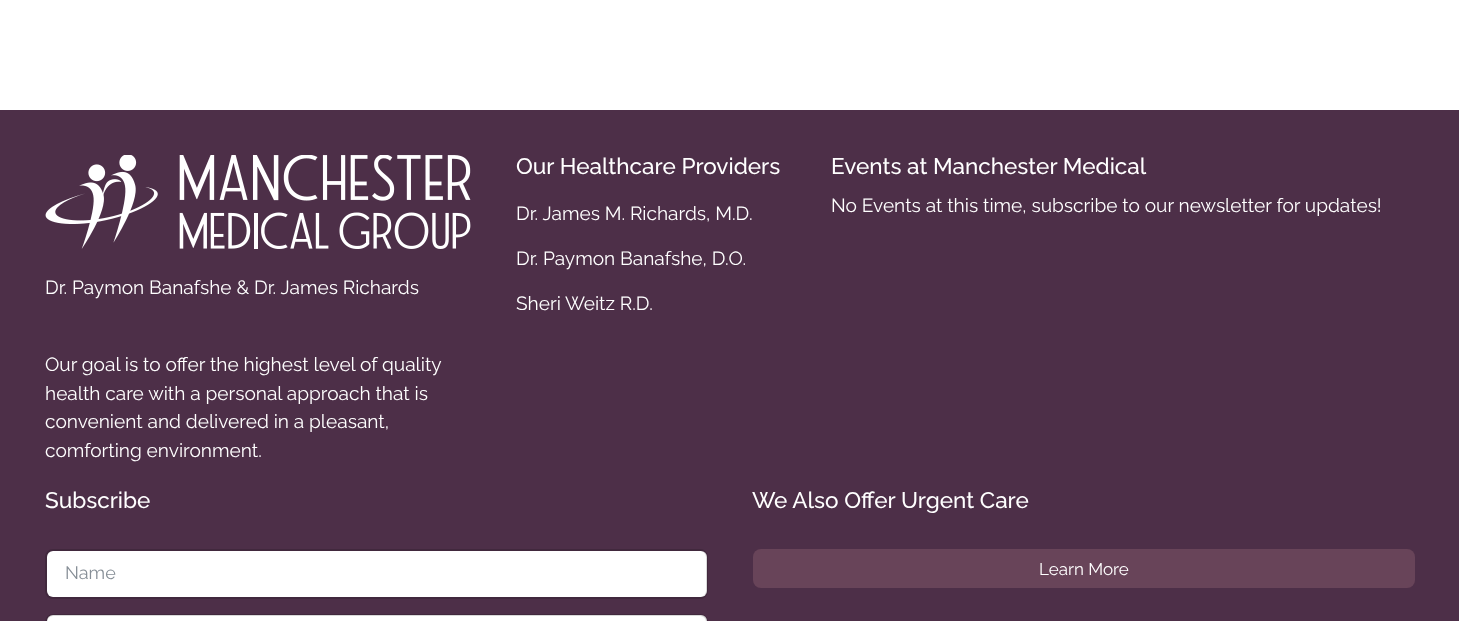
<?xml version="1.0" encoding="UTF-8"?>
<svg xmlns="http://www.w3.org/2000/svg" width="1459" height="621">
    <rect width="100%" height="100%" fill="#FFFFFF"/>
    <rect x="0" y="110" width="1459" height="511" fill="#4D2F48"/>
    <text x="516" y="174" font-family="Raleway" font-size="22.5" font-weight="500" fill="#FFFFFF">Our Healthcare Providers</text>
    <text x="516" y="220" font-family="Raleway" font-size="19.1" fill="#FFFFFF">Dr. James M. Richards, M.D.</text>
    <text x="516" y="265" font-family="Raleway" font-size="19.1" fill="#FFFFFF">Dr. Paymon Banafshe, D.O.</text>
    <text x="516" y="310" font-family="Raleway" font-size="19.1" fill="#FFFFFF">Sheri Weitz R.D.</text>
    <text x="831" y="174" font-family="Raleway" font-size="22.5" font-weight="500" fill="#FFFFFF">Events at Manchester Medical</text>
    <text x="831" y="212" font-family="Raleway" font-size="19.1" fill="#FFFFFF">No Events at this time, subscribe to our newsletter for updates!</text>
    <image x="45" y="155" width="426" height="94" href="img_01.png"/>
    <text x="45" y="294" font-family="Raleway" font-size="19.1" fill="#FFFFFF">Dr. Paymon Banafshe &amp; Dr. James Richards</text>
    <text font-family="Raleway" font-size="19.1" fill="#FFFFFF">
        <tspan x="45" y="371">Our goal is to offer the highest level of quality</tspan>
        <tspan x="45" y="400">health care with a personal approach that is</tspan>
        <tspan x="45" y="428">convenient and delivered in a pleasant,</tspan>
        <tspan x="45" y="457">comforting environment.</tspan>
    </text>
    <text x="45" y="508" font-family="Raleway" font-size="22.5" font-weight="500" fill="#FFFFFF">Subscribe</text>
    <rect x="47" y="551" width="660" height="46" rx="6" fill="#FFFFFF"/>
    <rect x="46" y="550" width="661" height="48" rx="7" fill="none" stroke="#000000" stroke-opacity="0.15" stroke-width="2"/>
    <text x="65" y="579" font-family="Raleway" font-size="18" fill="#868E96">Name</text>
    <rect x="47" y="615" width="660" height="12" rx="6" fill="#FFFFFF"/>
    <rect x="46" y="615" width="661" height="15" rx="7" fill="none" stroke="#000000" stroke-opacity="0.15" stroke-width="2"/>
    <text x="752" y="508" font-family="Raleway" font-size="22.5" font-weight="500" fill="#FFFFFF">We Also Offer Urgent Care</text>
    <rect x="753" y="549" width="662" height="39" rx="8" fill="#684459"/>
    <text x="1039" y="575" font-family="Raleway" font-size="17" fill="#FFFFFF">Learn More</text>
</svg>
